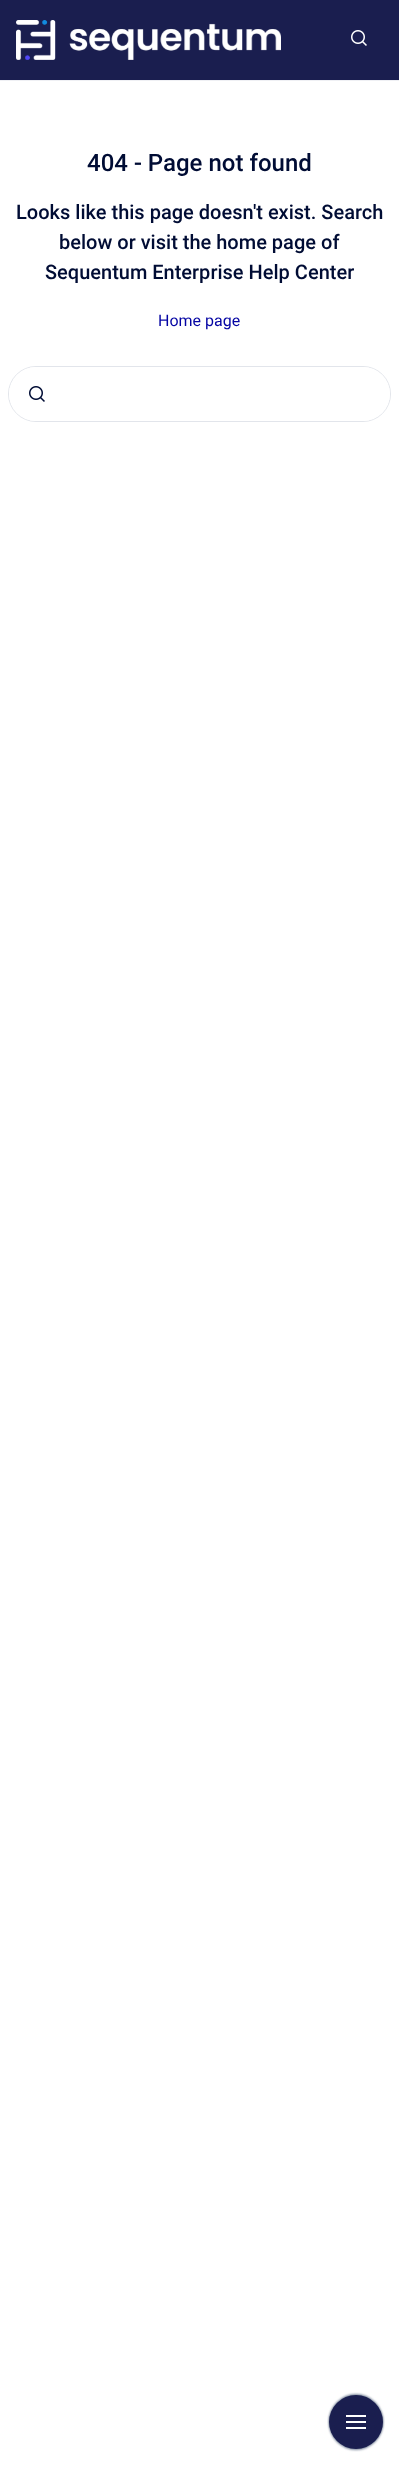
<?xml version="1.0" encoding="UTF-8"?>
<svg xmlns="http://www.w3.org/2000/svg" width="399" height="2465">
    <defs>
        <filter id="blur1" x="-50%" y="-200%" width="200%" height="500%"><feGaussianBlur stdDeviation="1"/></filter>
    </defs>
    <rect width="100%" height="100%" fill="#FFFFFF"/>
    <rect x="0" y="0" width="399" height="80" fill="#1A1E4F"/>
    <rect x="0" y="80" width="399" height="1" fill="#EFF0F4"/>
    <image x="16" y="20" width="265" height="40" href="img_01.png"/>
    <image x="351" y="30" width="16" height="16" href="img_02.png"/>
    <text x="87" y="171" font-family="Roboto" font-size="24" font-weight="500" fill="#000C34">404 - Page not found</text>
    <text x="16" y="219" font-family="Roboto" font-size="20" font-weight="500" fill="#000C34">Looks like this page doesn't exist. Search</text>
    <text x="59" y="249" font-family="Roboto" font-size="20" font-weight="500" fill="#000C34">below or visit the home page of</text>
    <text x="45" y="279" font-family="Roboto" font-size="20" font-weight="500" fill="#000C34">Sequentum Enterprise Help Center</text>
    <text x="158" y="326" font-family="Roboto" font-size="16" fill="#0404A3">Home page</text>
    <rect x="8.5" y="366.5" width="382" height="55" rx="27.5" fill="none" stroke="#E2E5EB"/>
    <rect x="9" y="367" width="381" height="54" rx="27" fill="#FFFFFF"/>
    <image x="29" y="386" width="16" height="16" href="img_03.png"/>
    <rect x="329" y="2394" width="54" height="54" rx="27" fill="#7A869A" filter="url(#blur1)"/>
    <rect x="329" y="2396" width="54" height="54" rx="27" fill="#7A869A" filter="url(#blur1)"/>
    <circle cx="356" cy="2422" r="27" fill="#1A1E4F"/>
    <rect x="346" y="2415" width="20" height="2" fill="#FFFFFF"/>
    <rect x="346" y="2421" width="20" height="2" fill="#FFFFFF"/>
    <rect x="346" y="2427" width="20" height="2" fill="#FFFFFF"/>
</svg>
